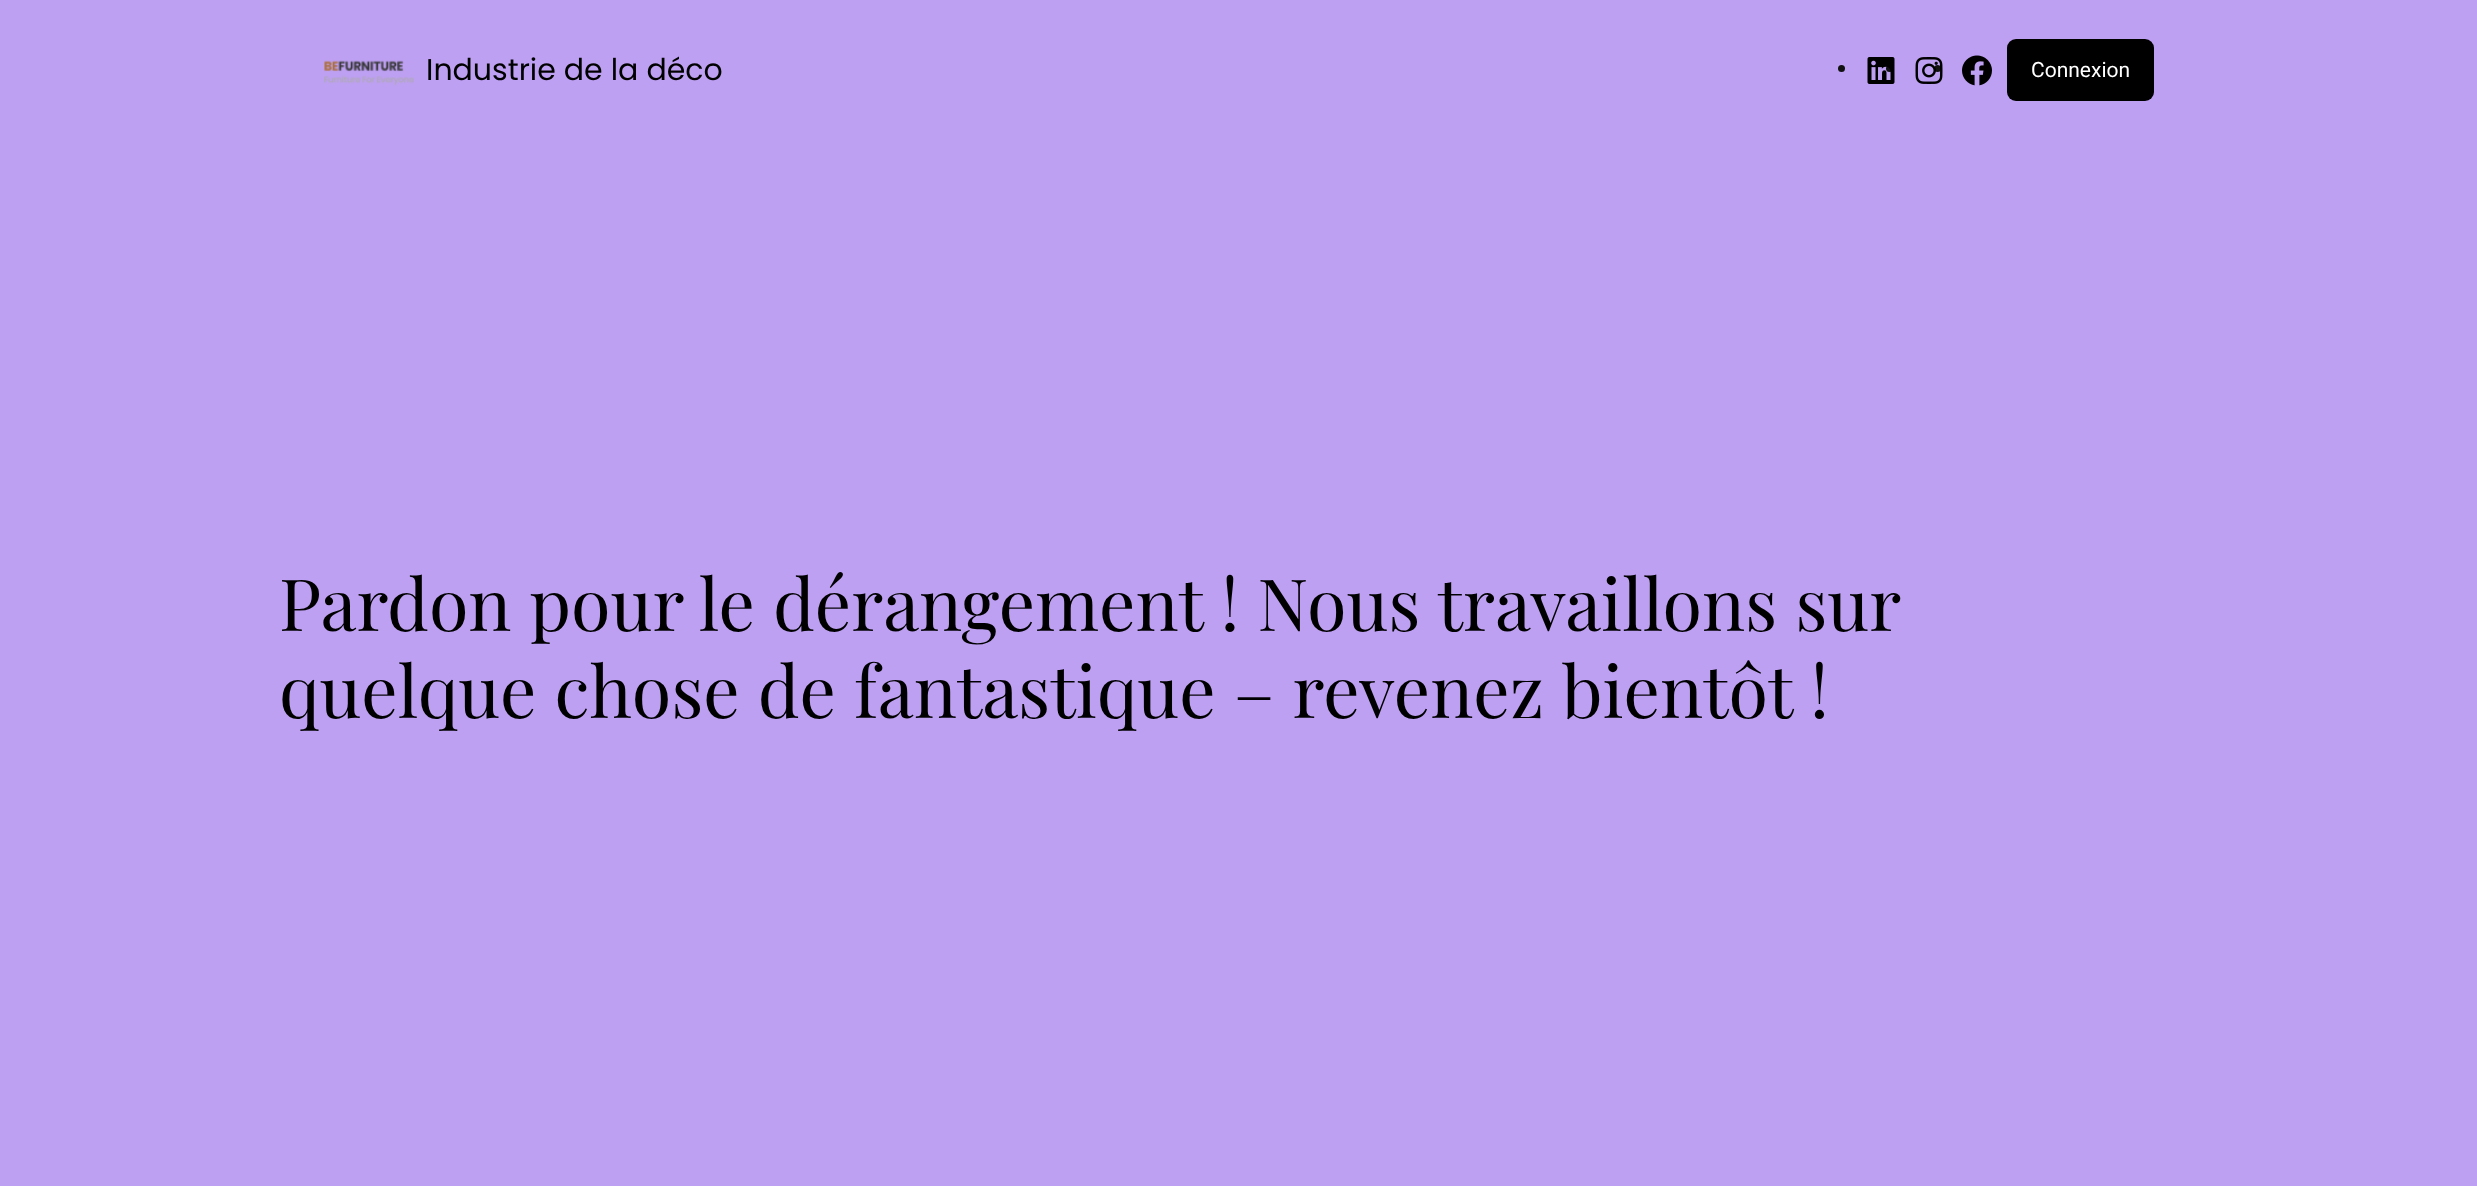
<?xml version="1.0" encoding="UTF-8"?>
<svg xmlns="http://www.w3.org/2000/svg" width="2477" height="1186">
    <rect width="100%" height="100%" fill="#BEA0F2"/>
    <image x="324" y="60" width="90" height="26" href="img_01.png"/>
    <text x="426" y="80" font-family="Poppins" font-size="30" fill="#000000">Industrie de la déco</text>
    <circle cx="1841.5" cy="68.5" r="3.5" fill="#111111"/>
    <circle cx="1889.5" cy="68.5" r="3.5" fill="#111111"/>
    <image x="1867" y="57" width="28" height="27" href="img_02.png"/>
    <circle cx="1937.5" cy="68.5" r="3.5" fill="#111111"/>
    <image x="1915" y="57" width="28" height="27" href="img_03.png"/>
    <image x="1962" y="55" width="30" height="31" href="img_04.png"/>
    <rect x="2007" y="39" width="147" height="62" rx="9" fill="#000000"/>
    <text x="2031" y="77" font-family="Roboto" font-size="21" fill="#FFFFFF">Connexion</text>
    <text font-family="Playfair Display" font-size="72" fill="#000000">
        <tspan x="279" y="631">Pardon pour le dérangement ! Nous travaillons sur</tspan>
        <tspan x="279" y="718">quelque chose de fantastique – revenez bientôt !</tspan>
    </text>
</svg>
